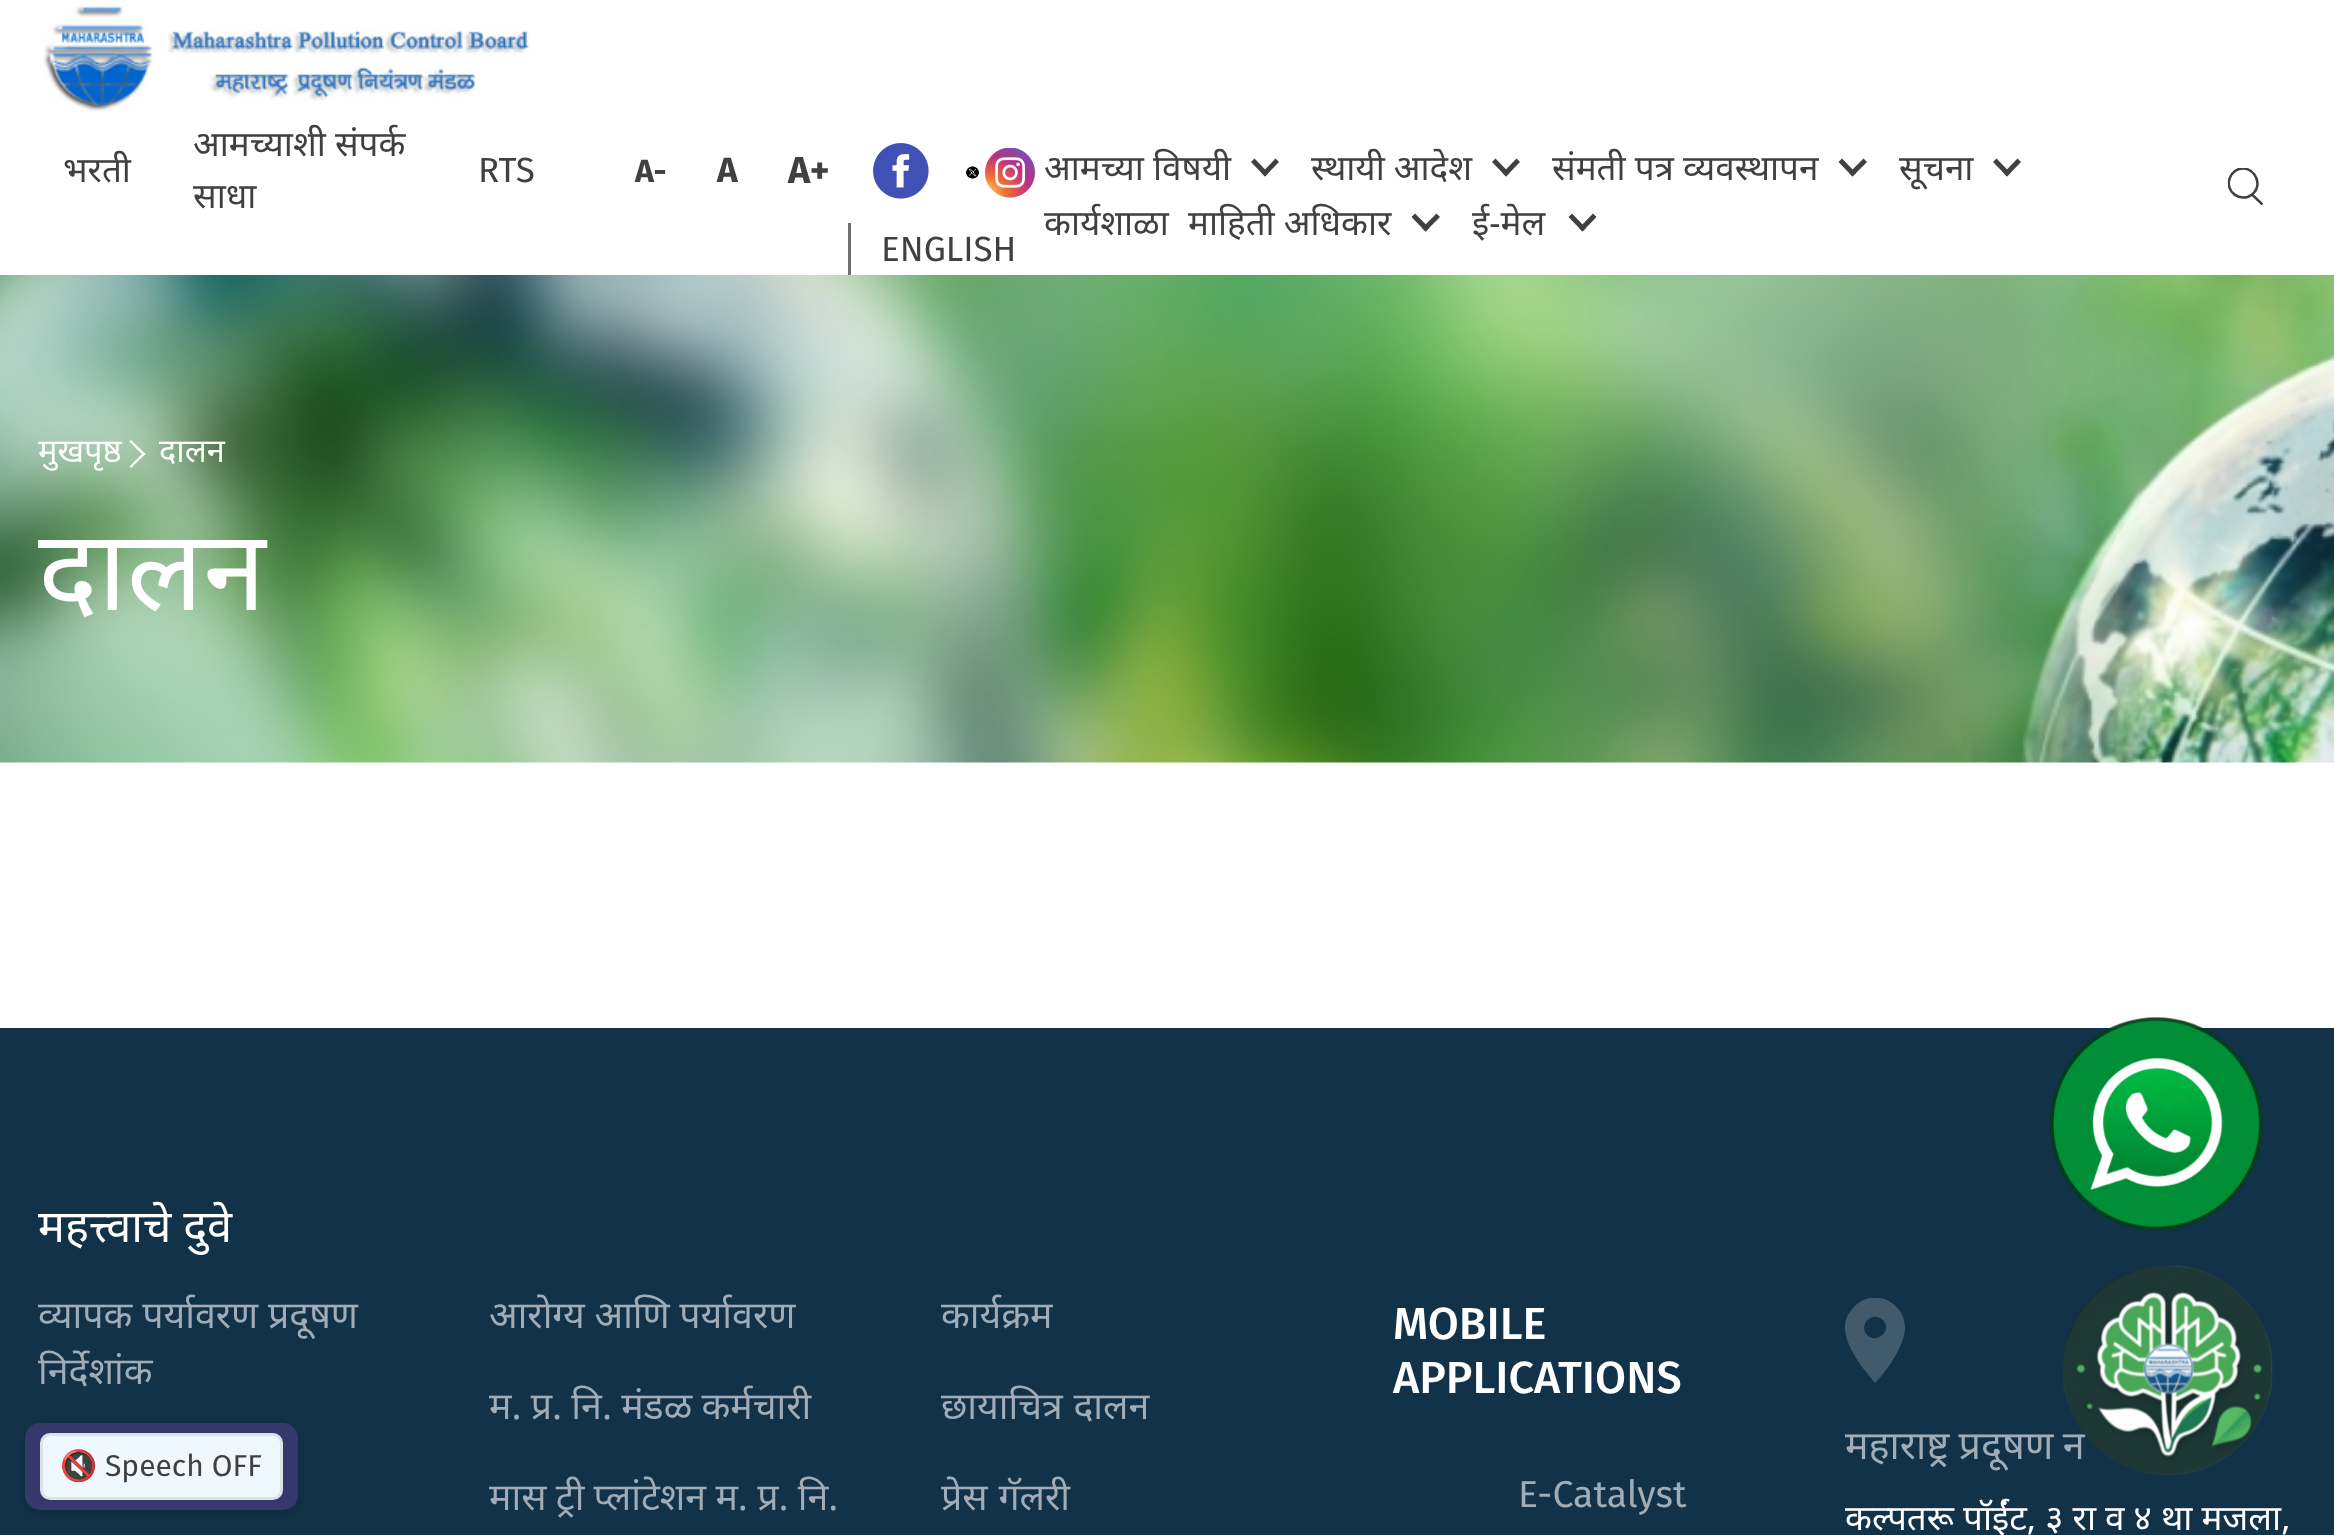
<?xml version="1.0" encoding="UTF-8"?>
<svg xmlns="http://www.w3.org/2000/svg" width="2334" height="1535">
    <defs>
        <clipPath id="clip1"><rect x="2228" y="168" width="35" height="37"/></clipPath>
        <filter id="blur1" x="-50%" y="-200%" width="200%" height="500%"><feGaussianBlur stdDeviation="7.5"/></filter>
        <clipPath id="clip2"><rect x="1845" y="1298" width="60" height="87"/></clipPath>
    </defs>
    <rect width="100%" height="100%" fill="#FFFFFF"/>
    <image x="43" y="6" width="487" height="106" href="img_01.png"/>
    <text x="63" y="182" font-family="Noto Sans" font-size="35" fill="#404040">भरती</text>
    <text font-family="Noto Sans" font-size="35" fill="#404040">
        <tspan x="193" y="156">आमच्याशी संपर्क</tspan>
        <tspan x="193" y="208">साधा</tspan>
    </text>
    <text x="478" y="182" font-family="Fira Sans" font-size="35" fill="#404040">RTS</text>
    <text x="635" y="182" font-family="Fira Sans" font-size="32" font-weight="700" fill="#404040">A-</text>
    <text x="717" y="182" font-family="Fira Sans" font-size="35" font-weight="700" fill="#404040">A</text>
    <text x="788" y="183" font-family="Fira Sans" font-size="37.5" font-weight="700" fill="#404040">A+</text>
    <image x="873" y="143" width="56" height="56" href="img_02.png"/>
    <image x="965" y="166" width="15" height="13" href="img_03.png"/>
    <image x="985" y="148" width="50" height="50" href="img_04.png"/>
    <rect x="848" y="223" width="3" height="52" fill="#707070"/>
    <text x="881" y="261" font-family="Fira Sans" font-size="35" fill="#404040">ENGLISH</text>
    <text x="1044" y="180" font-family="Noto Sans" font-size="35" fill="#404040">आमच्या विषयी</text>
    <path d="M 1275.5 158.5 L 1279 162 L 1265 176.5 L 1261.5 173 Z" fill="#404040"/>
    <path d="M 1254.5 158.5 L 1268.5 173 L 1265 176.5 L 1251 162 Z" fill="#404040"/>
    <text x="1311" y="180" font-family="Noto Sans" font-size="35" fill="#404040">स्थायी आदेश</text>
    <path d="M 1516.5 158.5 L 1520 162 L 1506 176.5 L 1502.5 173 Z" fill="#404040"/>
    <path d="M 1495.5 158.5 L 1509.5 173 L 1506 176.5 L 1492 162 Z" fill="#404040"/>
    <text x="1552" y="180" font-family="Noto Sans" font-size="35" fill="#404040">संमती पत्र व्यवस्थापन</text>
    <path d="M 1863.5 158.5 L 1867 162 L 1852.5 176.5 L 1849 173 Z" fill="#404040"/>
    <path d="M 1842 158.5 L 1856 173 L 1852.5 176.5 L 1838.5 162 Z" fill="#404040"/>
    <text x="1899" y="180" font-family="Noto Sans" font-size="35" fill="#404040">सूचना</text>
    <path d="M 2017.5 158.5 L 2021 162 L 2007 176.5 L 2003.5 173 Z" fill="#404040"/>
    <path d="M 1996.5 158.5 L 2010.5 173 L 2007 176.5 L 1993 162 Z" fill="#404040"/>
    <text x="1044" y="235" font-family="Noto Sans" font-size="35" fill="#404040">कार्यशाळा</text>
    <text x="1188" y="235" font-family="Noto Sans" font-size="35" fill="#404040">माहिती अधिकार</text>
    <path d="M 1436.5 213.5 L 1440 217 L 1425.5 231.5 L 1422 228 Z" fill="#404040"/>
    <path d="M 1415 213.5 L 1429.5 228 L 1425.5 231.5 L 1411.5 217 Z" fill="#404040"/>
    <text x="1472" y="235" font-family="Noto Sans" font-size="35" fill="#404040">ई-मेल</text>
    <path d="M 1593 213.5 L 1596.5 217 L 1582.5 231.5 L 1579 228 Z" fill="#404040"/>
    <path d="M 1572 213.5 L 1586 228 L 1582.5 231.5 L 1568.5 217 Z" fill="#404040"/>
    <g clip-path="url(#clip1)">
        <path d="M 2252 194.5 C 2241 203.5 2224 191.5 2230 177.5 C 2231 175 2233 172.5 2235 171 C 2250.5 161 2266 183 2252 194.5 L 2262.5 204.5 Z" fill="none" stroke="#404040" stroke-width="2.5"/>
    </g>
    <image x="0" y="275" width="2334" height="488" href="img_05.png"/>
    <text x="38" y="462" font-family="Noto Sans" font-size="32.5" fill="#FFFFFF">मुखपृष्ठ</text>
    <path d="M 145.5 454 L 131 468 L 129.5 466.5 L 143.5 452.5 Z" fill="#FFFFFF"/>
    <path d="M 145.5 454 L 143.5 456 L 129.5 441.5 L 131 440 Z" fill="#FFFFFF"/>
    <text x="159" y="462" font-family="Noto Sans" font-size="32.5" fill="#FFFFFF">दालन</text>
    <text x="38" y="610" font-family="Noto Sans" font-size="112.5" fill="#FFFFFF">दालन</text>
    <rect x="0" y="1028" width="2334" height="507" fill="#113248"/>
    <image x="2050" y="1017" width="213" height="213" href="img_06.png"/>
    <text x="38" y="1242" font-family="Noto Sans" font-size="45" fill="#FFFFFF">महत्त्वाचे दुवे</text>
    <text font-family="Noto Sans" font-size="37.5" fill="#A0ADB6">
        <tspan x="38" y="1328">व्यापक पर्यावरण प्रदूषण</tspan>
        <tspan x="38" y="1384">निर्देशांक</tspan>
    </text>
    <text x="489" y="1328" font-family="Noto Sans" font-size="37.5" fill="#A0ADB6">आरोग्य आणि पर्यावरण</text>
    <text x="489" y="1419" word-spacing="-0.5" font-family="Noto Sans" font-size="37.5" fill="#A0ADB6">म. प्र. नि. मंडळ कर्मचारी</text>
    <text x="489" y="1510" word-spacing="-0.5" font-family="Noto Sans" font-size="37.5" fill="#A0ADB6">मास ट्री प्लांटेशन म. प्र. नि.</text>
    <text x="941" y="1328" font-family="Noto Sans" font-size="37.5" fill="#A0ADB6">कार्यक्रम</text>
    <text x="941" y="1419" word-spacing="1" font-family="Noto Sans" font-size="37.5" fill="#A0ADB6">छायाचित्र दालन</text>
    <text x="941" y="1510" word-spacing="1" font-family="Noto Sans" font-size="37.5" fill="#A0ADB6">प्रेस गॅलरी</text>
    <text font-family="Fira Sans" font-size="45" font-weight="500" fill="#FFFFFF">
        <tspan x="1393" y="1339">MOBILE</tspan>
        <tspan x="1393" y="1393">APPLICATIONS</tspan>
    </text>
    <text x="1518" y="1507" font-family="Fira Sans" font-size="37.5" fill="#A0ADB6">E-Catalyst</text>
    <rect x="25" y="1428" width="273" height="87" rx="15" fill="#000000" fill-opacity="0.15" filter="url(#blur1)"/>
    <rect x="25" y="1423" width="273" height="87" rx="15" fill="#34386A"/>
    <rect x="41.5" y="1434.5" width="240" height="64" rx="8.5" fill="#F0F8FF" stroke="#DEE2E6" stroke-width="3"/>
    <text x="60" y="1476" font-family="Noto Color Emoji" font-size="30" fill="#404040">🔇</text>
    <text x="105" y="1476" font-family="Fira Sans" font-size="30" fill="#404040">Speech OFF</text>
    <g clip-path="url(#clip2)">
        <path d="M 1854 1307 C 1872 1287 1905 1301 1905 1328 C 1905 1345 1887 1371 1875 1383 L 1862 1367 C 1850 1350 1835 1325 1854 1307 Z M 1867 1335 C 1877 1345 1893 1330 1883 1320 C 1872 1310 1858 1325 1867 1335 Z" fill="#415B6D"/>
    </g>
    <text x="1845" y="1459" word-spacing="-1" font-family="Noto Sans" font-size="39.5" fill="#A0ADB6">महाराष्ट्र प्रदूषण न</text>
    <text x="1845" y="1530" font-family="Noto Sans" font-size="35" fill="#FFFFFF">कल्पतरू पॉईंट, ३ रा व ४ था मजला,</text>
    <image x="2063" y="1265" width="210" height="210" href="img_07.png"/>
</svg>
